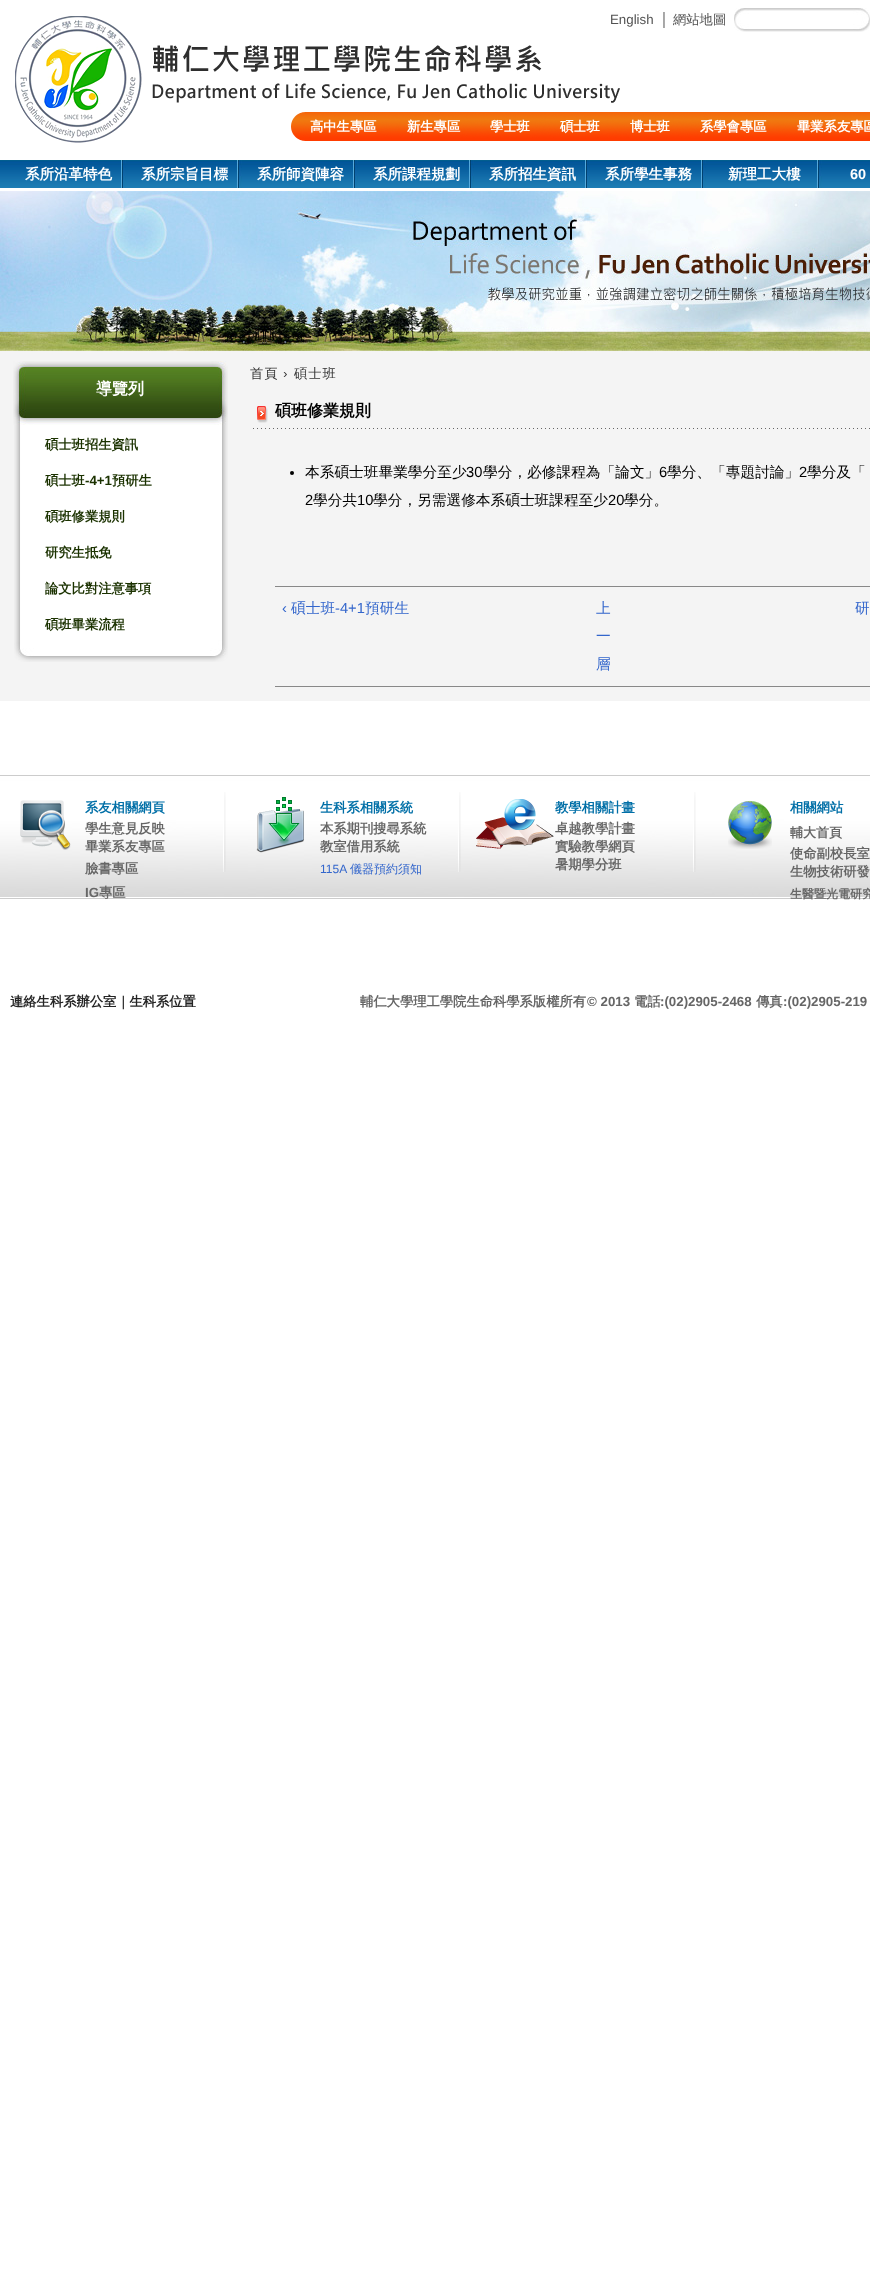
<?xml version="1.0" encoding="UTF-8"?>
<svg xmlns="http://www.w3.org/2000/svg" width="870" height="2291">
    <rect width="100%" height="100%" fill="#FFFFFF"/>
    <image x="152" y="45" width="468" height="58" href="img_01.png"/>
    <image x="15" y="16" width="127" height="127" href="img_02.png"/>
    <text x="610" y="24" font-family="Liberation Sans" font-size="13.3" fill="#525252">English</text>
    <text x="656" y="24" font-family="WenQuanYi Zen Hei" font-size="16" font-weight="500" fill="#525252">｜</text>
    <text x="673" y="24" font-family="WenQuanYi Zen Hei" font-size="13.3" font-weight="500" fill="#525252">網站地圖</text>
    <image x="734" y="8" width="136" height="24" href="img_03.png"/>
    <image x="291" y="112" width="579" height="29" href="img_04.png"/>
    <text x="310" y="131" font-family="WenQuanYi Zen Hei" font-size="13.3" font-weight="700" fill="#FFFFFF">高中生專區</text>
    <text x="407" y="131" font-family="WenQuanYi Zen Hei" font-size="13.3" font-weight="700" fill="#FFFFFF">新生專區</text>
    <text x="490" y="131" font-family="WenQuanYi Zen Hei" font-size="13.3" font-weight="700" fill="#FFFFFF">學士班</text>
    <text x="560" y="131" font-family="WenQuanYi Zen Hei" font-size="13.3" font-weight="700" fill="#FFFFFF">碩士班</text>
    <text x="630" y="131" font-family="WenQuanYi Zen Hei" font-size="13.3" font-weight="700" fill="#FFFFFF">博士班</text>
    <text x="700" y="131" font-family="WenQuanYi Zen Hei" font-size="13.3" font-weight="700" fill="#FFFFFF">系學會專區</text>
    <text x="797" y="131" font-family="WenQuanYi Zen Hei" font-size="13.3" font-weight="700" fill="#FFFFFF">畢業系友專區</text>
    <image x="0" y="160" width="870" height="28" href="img_05.png"/>
    <image x="121" y="160" width="5" height="28" href="img_06.png"/>
    <text x="25" y="179" font-family="WenQuanYi Zen Hei" font-size="14.5" font-weight="700" fill="#FFFFFF">系所沿革特色</text>
    <image x="237" y="160" width="5" height="28" href="img_06.png"/>
    <text x="141" y="179" font-family="WenQuanYi Zen Hei" font-size="14.5" font-weight="700" fill="#FFFFFF">系所宗旨目標</text>
    <image x="353" y="160" width="5" height="28" href="img_06.png"/>
    <text x="257" y="179" font-family="WenQuanYi Zen Hei" font-size="14.5" font-weight="700" fill="#FFFFFF">系所師資陣容</text>
    <image x="469" y="160" width="5" height="28" href="img_06.png"/>
    <text x="373" y="179" font-family="WenQuanYi Zen Hei" font-size="14.5" font-weight="700" fill="#FFFFFF">系所課程規劃</text>
    <image x="585" y="160" width="5" height="28" href="img_06.png"/>
    <text x="489" y="179" font-family="WenQuanYi Zen Hei" font-size="14.5" font-weight="700" fill="#FFFFFF">系所招生資訊</text>
    <image x="701" y="160" width="5" height="28" href="img_06.png"/>
    <text x="605" y="179" font-family="WenQuanYi Zen Hei" font-size="14.5" font-weight="700" fill="#FFFFFF">系所學生事務</text>
    <image x="817" y="160" width="5" height="28" href="img_06.png"/>
    <text x="728" y="179" font-family="WenQuanYi Zen Hei" font-size="14.5" font-weight="700" fill="#FFFFFF">新理工大樓</text>
    <text x="850" y="179" font-family="Liberation Sans" font-size="14.5" font-weight="700" fill="#FFFFFF">60</text>
    <image x="0" y="191" width="870" height="160" href="img_07.png"/>
    <rect x="0" y="351" width="870" height="350" fill="#F4F4F4"/>
    <image x="14" y="425" width="214" height="237" href="img_08.png"/>
    <image x="13" y="361" width="215" height="64" href="img_09.png"/>
    <text x="96" y="394" font-family="WenQuanYi Zen Hei" font-size="16" font-weight="700" fill="#FFFFFF">導覽列</text>
    <text x="45" y="449" font-family="WenQuanYi Zen Hei" font-size="13.3" font-weight="700" fill="#1B3200">碩士班招生資訊</text>
    <text x="45" y="485" font-family="WenQuanYi Zen Hei" font-size="13.3" font-weight="700" fill="#1B3200">碩士班</text>
    <text x="85" y="485" font-family="Liberation Sans" font-size="13.3" font-weight="700" fill="#1B3200">-4+1</text>
    <text x="112" y="485" font-family="WenQuanYi Zen Hei" font-size="13.3" font-weight="700" fill="#1B3200">預研生</text>
    <text x="45" y="521" font-family="WenQuanYi Zen Hei" font-size="13.3" font-weight="700" fill="#1B3200">碩班修業規則</text>
    <text x="45" y="557" font-family="WenQuanYi Zen Hei" font-size="13.3" font-weight="700" fill="#1B3200">研究生抵免</text>
    <text x="45" y="593" font-family="WenQuanYi Zen Hei" font-size="13.3" font-weight="700" fill="#1B3200">論文比對注意事項</text>
    <text x="45" y="629" font-family="WenQuanYi Zen Hei" font-size="13.3" font-weight="700" fill="#1B3200">碩班畢業流程</text>
    <text x="250" y="378" font-family="WenQuanYi Zen Hei" font-size="13.3" font-weight="500" letter-spacing="1" fill="#333333">首頁</text>
    <text x="283" y="378" font-family="Liberation Sans" font-size="13.3" letter-spacing="1" fill="#333333">›</text>
    <text x="294" y="378" font-family="WenQuanYi Zen Hei" font-size="13.3" font-weight="500" letter-spacing="1" fill="#333333">碩士班</text>
    <image x="253" y="406" width="617" height="23" href="img_10.png"/>
    <text x="275" y="416" font-family="WenQuanYi Zen Hei" font-size="16" font-weight="700" fill="#000000">碩班修業規則</text>
    <circle cx="292" cy="473" r="2" fill="#000000"/>
    <text x="305" y="477" font-family="WenQuanYi Zen Hei" font-size="14.7" font-weight="500" fill="#000000">本系碩士班畢業學分至少</text>
    <text x="466" y="477" font-family="Liberation Sans" font-size="14.7" fill="#000000">30</text>
    <text x="483" y="477" font-family="WenQuanYi Zen Hei" font-size="14.7" font-weight="500" fill="#000000">學分，必修課程為「論文」</text>
    <text x="659" y="477" font-family="Liberation Sans" font-size="14.7" fill="#000000">6</text>
    <text x="667" y="477" font-family="WenQuanYi Zen Hei" font-size="14.7" font-weight="500" fill="#000000">學分、「專題討論」</text>
    <text x="799" y="477" font-family="Liberation Sans" font-size="14.7" fill="#000000">2</text>
    <text x="807" y="477" font-family="WenQuanYi Zen Hei" font-size="14.7" font-weight="500" fill="#000000">學分及「</text>
    <text x="305" y="505" font-family="Liberation Sans" font-size="14.7" fill="#000000">2</text>
    <text x="313" y="505" font-family="WenQuanYi Zen Hei" font-size="14.7" font-weight="500" fill="#000000">學分共</text>
    <text x="357" y="505" font-family="Liberation Sans" font-size="14.7" fill="#000000">10</text>
    <text x="373" y="505" font-family="WenQuanYi Zen Hei" font-size="14.7" font-weight="500" fill="#000000">學分，另需選修本系碩士班課程至少</text>
    <text x="608" y="505" font-family="Liberation Sans" font-size="14.7" fill="#000000">20</text>
    <text x="624" y="505" font-family="WenQuanYi Zen Hei" font-size="14.7" font-weight="500" fill="#000000">學分。</text>
    <rect x="275" y="586" width="595" height="1" fill="#888888"/>
    <rect x="275" y="686" width="595" height="1" fill="#888888"/>
    <text x="282" y="613" font-family="Liberation Sans" font-size="14.7" fill="#3366CC">‹</text>
    <text x="291" y="613" font-family="WenQuanYi Zen Hei" font-size="14.7" font-weight="500" fill="#3366CC">碩士班</text>
    <text x="335" y="613" font-family="Liberation Sans" font-size="14.7" fill="#3366CC">-4+1</text>
    <text x="365" y="613" font-family="WenQuanYi Zen Hei" font-size="14.7" font-weight="500" fill="#3366CC">預研生</text>
    <text font-family="WenQuanYi Zen Hei" font-size="14.7" font-weight="500" fill="#3366CC">
        <tspan x="596" y="613">上</tspan>
        <tspan x="596" y="641">一</tspan>
        <tspan x="596" y="669">層</tspan>
    </text>
    <text x="855" y="613" font-family="WenQuanYi Zen Hei" font-size="14.7" font-weight="500" fill="#3366CC">研</text>
    <image x="0" y="775" width="870" height="124" href="img_11.png"/>
    <image x="20" y="800" width="51" height="50" href="img_12.png"/>
    <text x="85" y="812" font-family="WenQuanYi Zen Hei" font-size="13.3" font-weight="700" fill="#016FA7">系友相關網頁</text>
    <text font-family="WenQuanYi Zen Hei" font-size="13.3" font-weight="700" fill="#666666">
        <tspan x="85" y="833">學生意見反映</tspan>
        <tspan x="85" y="851">畢業系友專區</tspan>
        <tspan x="85" y="873">臉書專區</tspan>
    </text>
    <text x="85" y="897" font-family="Liberation Sans" font-size="13.3" font-weight="700" fill="#666666">IG</text>
    <text x="99" y="897" font-family="WenQuanYi Zen Hei" font-size="13.3" font-weight="700" fill="#666666">專區</text>
    <image x="223" y="792" width="3" height="80" href="img_13.png"/>
    <image x="256" y="797" width="48" height="56" href="img_14.png"/>
    <text x="320" y="812" font-family="WenQuanYi Zen Hei" font-size="13.3" font-weight="700" fill="#016FA7">生科系相關系統</text>
    <text font-family="WenQuanYi Zen Hei" font-size="13.3" font-weight="700" fill="#666666">
        <tspan x="320" y="833">本系期刊搜尋系統</tspan>
        <tspan x="320" y="851">教室借用系統</tspan>
    </text>
    <text x="320" y="873" font-family="Liberation Sans" font-size="12" fill="#3366CC">115A</text>
    <text x="350" y="873" font-family="WenQuanYi Zen Hei" font-size="12" font-weight="500" fill="#3366CC">儀器預約須知</text>
    <image x="458" y="792" width="3" height="80" href="img_15.png"/>
    <image x="476" y="799" width="78" height="50" href="img_16.png"/>
    <text x="555" y="812" font-family="WenQuanYi Zen Hei" font-size="13.3" font-weight="700" fill="#016FA7">教學相關計畫</text>
    <text font-family="WenQuanYi Zen Hei" font-size="13.3" font-weight="700" fill="#666666">
        <tspan x="555" y="833">卓越教學計畫</tspan>
        <tspan x="555" y="851">實驗教學網頁</tspan>
        <tspan x="555" y="869">暑期學分班</tspan>
    </text>
    <image x="693" y="792" width="3" height="80" href="img_17.png"/>
    <image x="728" y="800" width="44" height="49" href="img_18.png"/>
    <text x="790" y="812" font-family="WenQuanYi Zen Hei" font-size="13.3" font-weight="700" fill="#016FA7">相關網站</text>
    <text x="790" y="837" font-family="WenQuanYi Zen Hei" font-size="13" font-weight="700" fill="#666666">輔大首頁</text>
    <text font-family="WenQuanYi Zen Hei" font-size="13.3" font-weight="700" fill="#666666">
        <tspan x="790" y="858">使命副校長室</tspan>
        <tspan x="790" y="876">生物技術研發</tspan>
    </text>
    <text x="790" y="898" font-family="WenQuanYi Zen Hei" font-size="12" font-weight="700" fill="#666666">生醫暨光電研究</text>
    <text x="10" y="1006" font-family="WenQuanYi Zen Hei" font-size="13.3" font-weight="700" fill="#252525">連絡生科系辦公室｜生科系位置</text>
    <text x="360" y="1006" font-family="WenQuanYi Zen Hei" font-size="13.3" font-weight="700" fill="#666666">輔仁大學理工學院生命科學系版權所有</text>
    <text x="587" y="1006" font-family="Liberation Sans" font-size="13.3" font-weight="700" fill="#666666">© 2013</text>
    <text x="634" y="1006" font-family="WenQuanYi Zen Hei" font-size="13.3" font-weight="700" fill="#666666">電話</text>
    <text x="660" y="1006" font-family="Liberation Sans" font-size="13.3" font-weight="700" fill="#666666">:(02)2905-2468</text>
    <text x="756" y="1006" font-family="WenQuanYi Zen Hei" font-size="13.3" font-weight="700" fill="#666666">傳真</text>
    <text x="783" y="1006" font-family="Liberation Sans" font-size="13.3" font-weight="700" fill="#666666">:(02)2905-219</text>
</svg>
